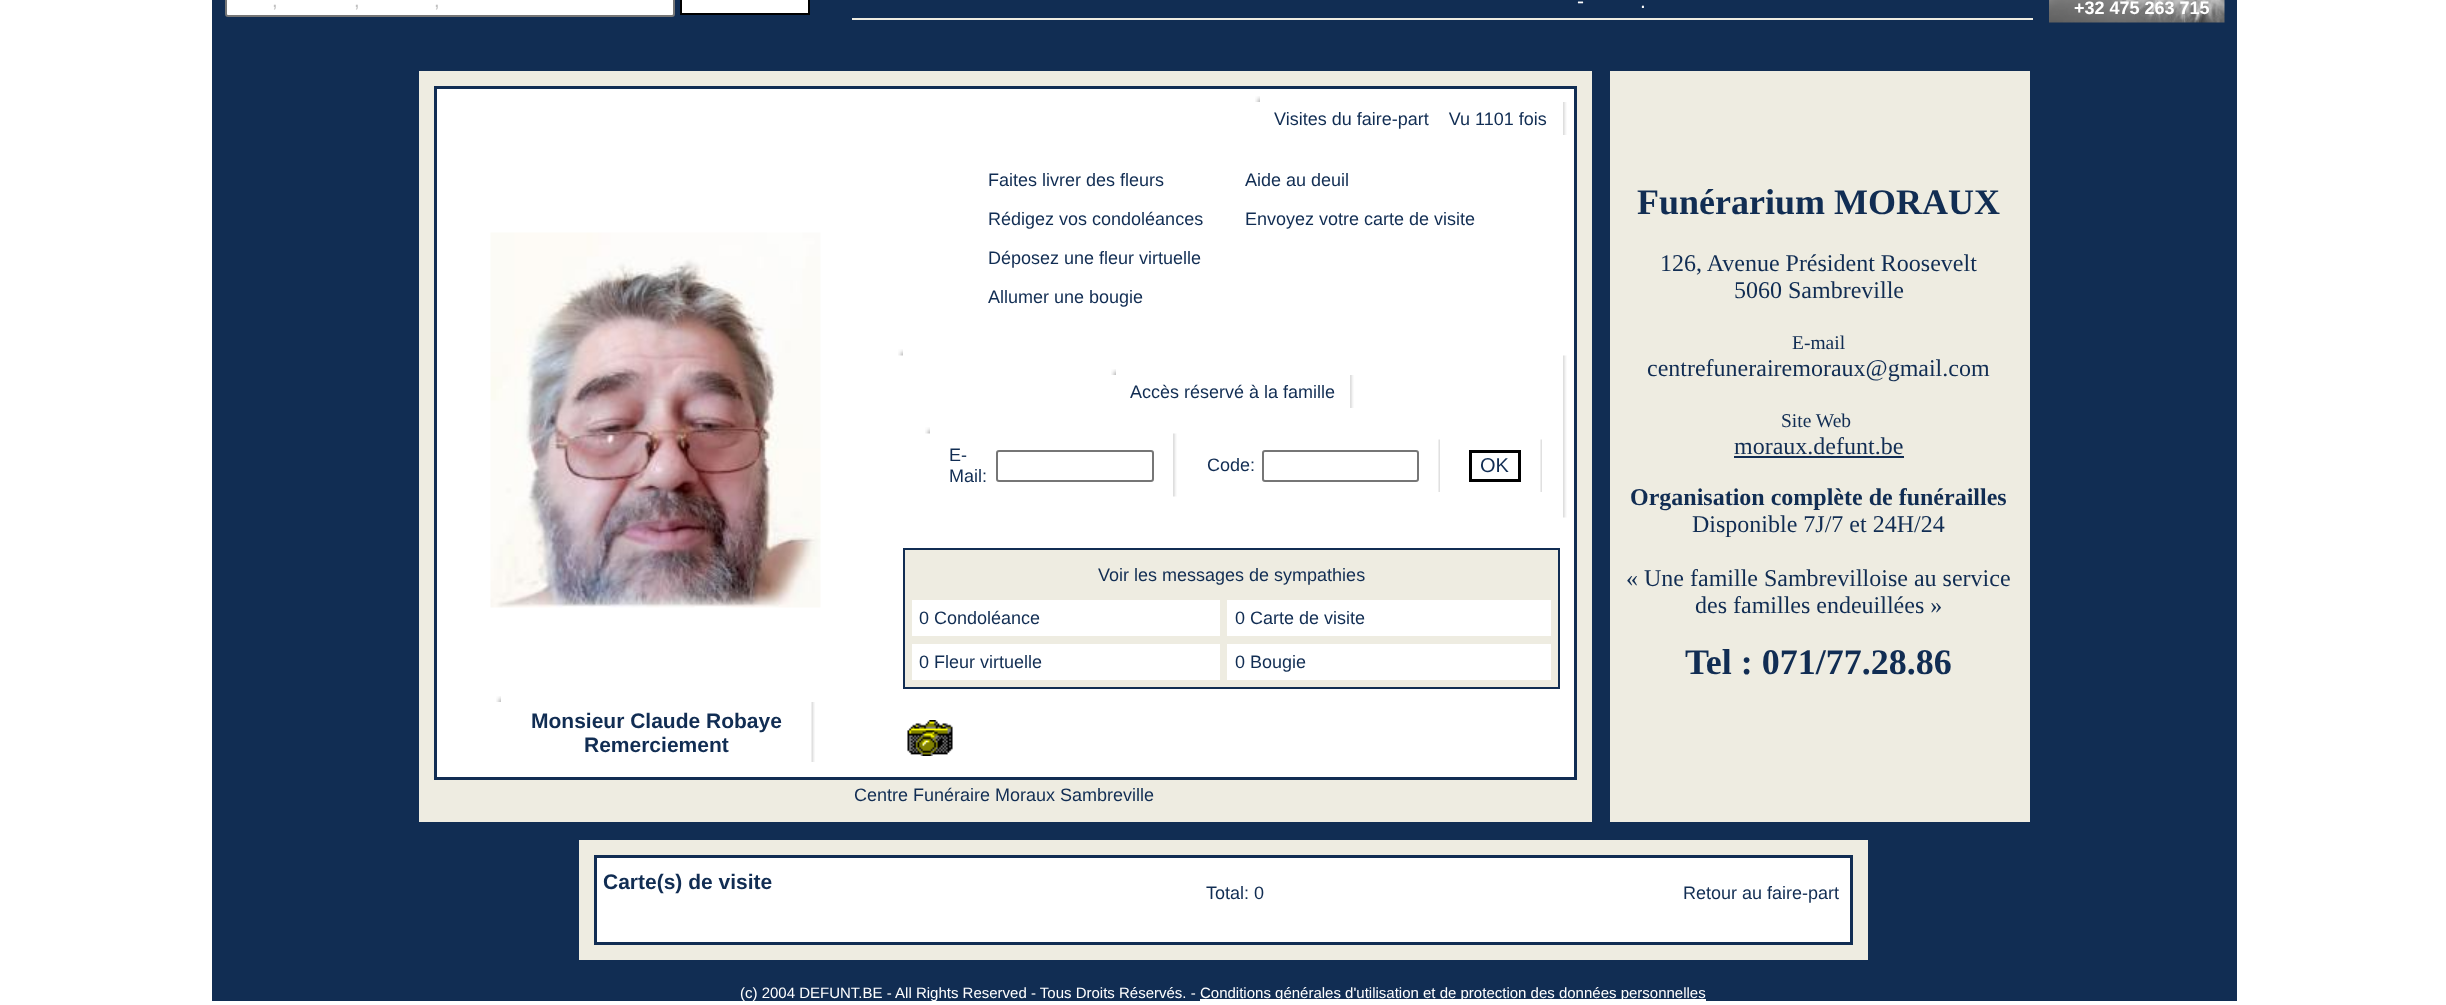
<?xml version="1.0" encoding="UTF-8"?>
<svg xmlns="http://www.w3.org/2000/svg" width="2446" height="1005">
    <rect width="100%" height="100%" fill="#FFFFFF"/>
    <rect x="212" y="0" width="2025" height="1001" fill="#112D53"/>
    <rect x="226" y="-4" width="448" height="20" rx="2" fill="#FFFFFF" stroke="#767676" stroke-width="2"/>
    <text x="272" y="7" font-family="Liberation Sans" font-size="20" fill="#C0C0C0">,</text>
    <text x="354" y="7" font-family="Liberation Sans" font-size="20" fill="#C0C0C0">,</text>
    <text x="434" y="7" font-family="Liberation Sans" font-size="20" fill="#C0C0C0">,</text>
    <rect x="681" y="-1" width="128" height="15" fill="#FFFFFF" stroke="#000000" stroke-width="2"/>
    <rect x="852" y="18" width="1181" height="2" fill="#EEECE1"/>
    <text x="1577" y="8" font-family="Liberation Sans" font-size="21" fill="#FFFFFF">-</text>
    <text x="1640" y="8" font-family="Liberation Sans" font-size="21" fill="#FFFFFF">.</text>
    <image x="2049" y="0" width="176" height="23" href="img_01.png"/>
    <text x="2074" y="14" font-family="Liberation Sans" font-size="18" font-weight="700" fill="#FFFFFF">+32 475 263 715</text>
    <rect x="419" y="71" width="1173" height="751" fill="#EEECE1"/>
    <rect x="435.5" y="87.5" width="1140" height="691" fill="#FFFFFF" stroke="#112D53" stroke-width="3"/>
    <image x="1255" y="96" width="5" height="6" href="img_02.png"/>
    <text x="1274" y="125" font-family="Liberation Sans" font-size="18" fill="#112D53" xml:space="preserve">Visites du faire-part    Vu 1101 fois</text>
    <image x="1563" y="102" width="4" height="33" href="img_03.png"/>
    <image x="490" y="232" width="331" height="376" href="img_04.png"/>
    <text x="988" y="186" font-family="Liberation Sans" font-size="18" fill="#112D53">Faites livrer des fleurs</text>
    <text x="1245" y="186" font-family="Liberation Sans" font-size="18" fill="#112D53">Aide au deuil</text>
    <text x="988" y="225" font-family="Liberation Sans" font-size="18" fill="#112D53">Rédigez vos condoléances</text>
    <text x="1245" y="225" font-family="Liberation Sans" font-size="18" fill="#112D53">Envoyez votre carte de visite</text>
    <text x="988" y="264" font-family="Liberation Sans" font-size="18" fill="#112D53">Déposez une fleur virtuelle</text>
    <text x="988" y="303" font-family="Liberation Sans" font-size="18" fill="#112D53">Allumer une bougie</text>
    <image x="898" y="349" width="5" height="7" href="img_05.png"/>
    <image x="1111" y="369" width="5" height="6" href="img_02.png"/>
    <text x="1130" y="398" font-family="Liberation Sans" font-size="18" fill="#112D53">Accès réservé à la famille</text>
    <image x="1350" y="375" width="4" height="33" href="img_06.png"/>
    <image x="925" y="427" width="5" height="7" href="img_05.png"/>
    <text font-family="Liberation Sans" font-size="18" fill="#112D53">
        <tspan x="949" y="461">E-</tspan>
        <tspan x="949" y="482">Mail:</tspan>
    </text>
    <rect x="997" y="451" width="156" height="30" rx="2" fill="none" stroke="#767676" stroke-width="2"/>
    <image x="1173" y="433" width="4" height="64" href="img_07.png"/>
    <text x="1207" y="471" font-family="Liberation Sans" font-size="18" fill="#112D53">Code:</text>
    <rect x="1263" y="451" width="155" height="30" rx="2" fill="none" stroke="#767676" stroke-width="2"/>
    <image x="1438" y="439" width="2" height="53" href="img_08.png"/>
    <rect x="1470.5" y="451.5" width="49" height="29" fill="none" stroke="#000000" stroke-width="3"/>
    <text x="1480" y="472" font-family="Liberation Sans" font-size="20" fill="#112D53">OK</text>
    <image x="1540" y="439" width="2" height="53" href="img_08.png"/>
    <image x="1563" y="355" width="4" height="163" href="img_09.png"/>
    <rect x="904" y="549" width="655" height="139" fill="#EEECE1" stroke="#112D53" stroke-width="2"/>
    <text x="1098" y="581" font-family="Liberation Sans" font-size="18" fill="#112D53">Voir les messages de sympathies</text>
    <rect x="912" y="600" width="308" height="36" fill="#FFFFFF"/>
    <text x="919" y="624" font-family="Liberation Sans" font-size="18" fill="#112D53">0 Condoléance</text>
    <rect x="1227" y="600" width="324" height="36" fill="#FFFFFF"/>
    <text x="1235" y="624" font-family="Liberation Sans" font-size="18" fill="#112D53">0 Carte de visite</text>
    <rect x="912" y="644" width="308" height="36" fill="#FFFFFF"/>
    <text x="919" y="668" font-family="Liberation Sans" font-size="18" fill="#112D53">0 Fleur virtuelle</text>
    <rect x="1227" y="644" width="324" height="36" fill="#FFFFFF"/>
    <text x="1235" y="668" font-family="Liberation Sans" font-size="18" fill="#112D53">0 Bougie</text>
    <image x="496" y="696" width="5" height="6" href="img_02.png"/>
    <text x="531" y="728" font-family="Liberation Sans" font-size="21" font-weight="700" fill="#112D53">Monsieur Claude Robaye</text>
    <text x="584" y="752" font-family="Liberation Sans" font-size="21" font-weight="700" fill="#112D53">Remerciement</text>
    <image x="811" y="702" width="4" height="60" href="img_10.png"/>
    <image x="907" y="720" width="46" height="36" href="img_11.png"/>
    <text x="854" y="801" font-family="Liberation Sans" font-size="18" fill="#112D53">Centre Funéraire Moraux Sambreville</text>
    <rect x="1610" y="71" width="420" height="751" fill="#EEECE1"/>
    <text x="1637" y="214" font-family="Liberation Serif" font-size="36" font-weight="700" fill="#112D53">Funérarium MORAUX</text>
    <text x="1660" y="271" font-family="Liberation Serif" font-size="24" fill="#112D53">126, Avenue Président Roosevelt</text>
    <text x="1734" y="298" font-family="Liberation Serif" font-size="24" fill="#112D53">5060 Sambreville</text>
    <text x="1792" y="349" font-family="Liberation Serif" font-size="19.5" fill="#112D53">E-mail</text>
    <text x="1647" y="376" font-family="Liberation Serif" font-size="24" fill="#112D53">centrefunerairemoraux@gmail.com</text>
    <text x="1781" y="427" font-family="Liberation Serif" font-size="19.5" fill="#112D53">Site Web</text>
    <text x="1734" y="454" font-family="Liberation Serif" font-size="24" fill="#112D53">moraux.defunt.be</text>
    <rect x="1734" y="456" width="170" height="2" fill="#112D53"/>
    <text x="1630" y="505" font-family="Liberation Serif" font-size="24" font-weight="700" fill="#112D53">Organisation complète de funérailles</text>
    <text x="1692" y="532" font-family="Liberation Serif" font-size="24" fill="#112D53">Disponible 7J/7 et 24H/24</text>
    <text x="1626" y="586" font-family="Liberation Serif" font-size="24" fill="#112D53">« Une famille Sambrevilloise au service</text>
    <text x="1695" y="613" font-family="Liberation Serif" font-size="24" fill="#112D53">des familles endeuillées »</text>
    <text x="1685" y="674" font-family="Liberation Serif" font-size="36" font-weight="700" fill="#112D53">Tel : 071/77.28.86</text>
    <rect x="579" y="840" width="1289" height="120" fill="#EEECE1"/>
    <rect x="595.5" y="856.5" width="1256" height="87" fill="#FFFFFF" stroke="#112D53" stroke-width="3"/>
    <text x="603" y="889" font-family="Liberation Sans" font-size="21" font-weight="700" fill="#112D53">Carte(s) de visite</text>
    <text x="1206" y="899" font-family="Liberation Sans" font-size="18" fill="#112D53">Total: 0</text>
    <text x="1683" y="899" font-family="Liberation Sans" font-size="18" fill="#112D53">Retour au faire-part</text>
    <text x="740" y="998" font-family="Liberation Sans" font-size="15" fill="#FFFFFF">(c) 2004 DEFUNT.BE - All Rights Reserved - Tous Droits Réservés. -</text>
    <rect x="1200" y="999" width="506" height="2" fill="#FFFFFF"/>
    <text x="1200" y="998" font-family="Liberation Sans" font-size="15" fill="#FFFFFF">Conditions générales d'utilisation et de protection des données personnelles</text>
</svg>
